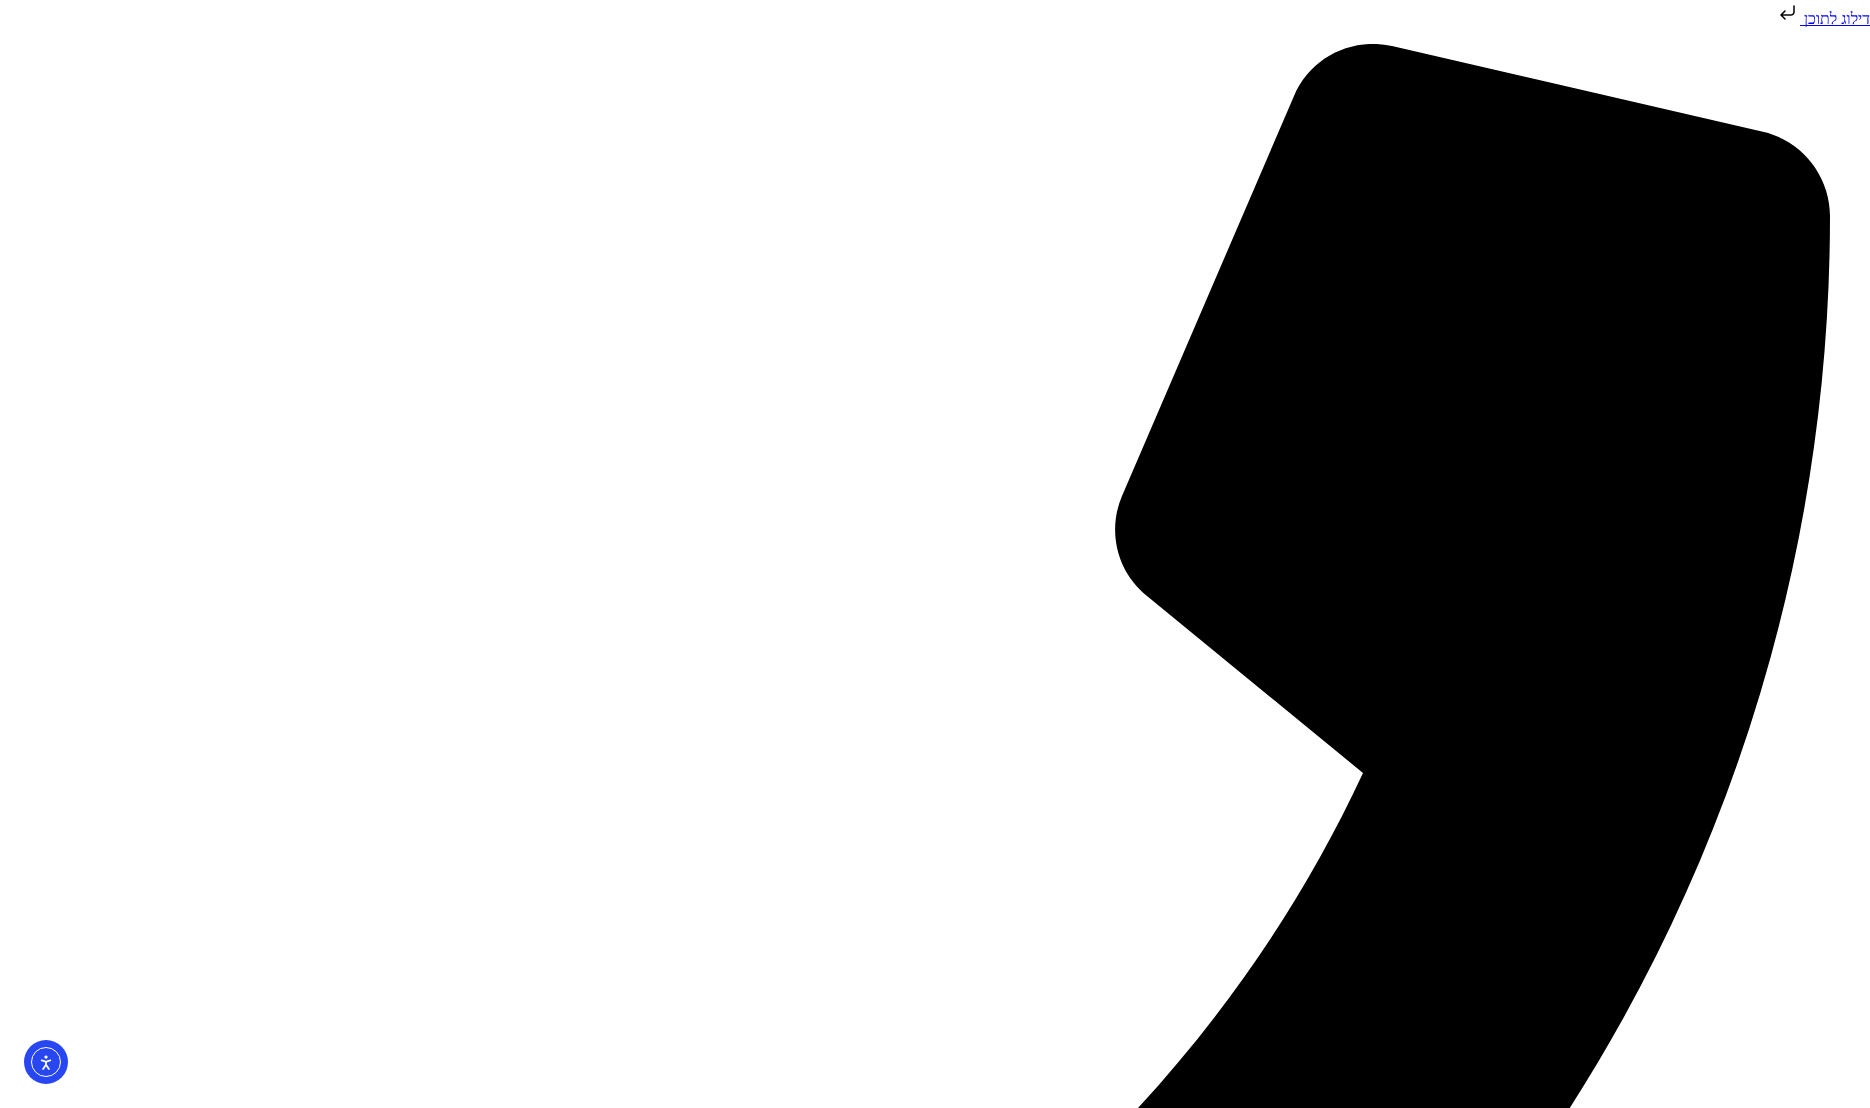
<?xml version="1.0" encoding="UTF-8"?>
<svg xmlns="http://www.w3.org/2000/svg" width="1870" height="1108">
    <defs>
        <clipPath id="clip1"><rect x="0" y="44" width="1830" height="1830"/></clipPath>
    </defs>
    <rect width="100%" height="100%" fill="#FFFFFF"/>
    <rect x="1800" y="25" width="70" height="1" fill="#0000EE"/>
    <text x="1870" y="24" font-family="Liberation Serif" font-size="16" direction="rtl" fill="#0000EE">דילוג לתוכן</text>
    <image x="1780" y="5" width="15" height="15" href="img_01.png"/>
    <g clip-path="url(#clip1)">
        <path d="M 1764 132 L 1392 46 C 1351 37 1310 58 1294 96 L 1122 496 C 1107 531 1117 572 1147 596 L 1363 773 C 1235 1048 1010 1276 730 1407 L 553 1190 C 528 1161 488 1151 452 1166 L 52 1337 C 14 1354 -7 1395 2 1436 L 88 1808 C 97 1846 131 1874 172 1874 C 1087 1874 1830 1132 1830 216 C 1830 176 1802 141 1764 132 Z" fill="#000000"/>
    </g>
    <circle cx="46" cy="1062" r="22" fill="#2847F3"/>
    <circle cx="46" cy="1062" r="14.5" fill="none" stroke="#FFFFFF"/>
    <image x="40" y="1055" width="12" height="15" href="img_02.png"/>
</svg>
